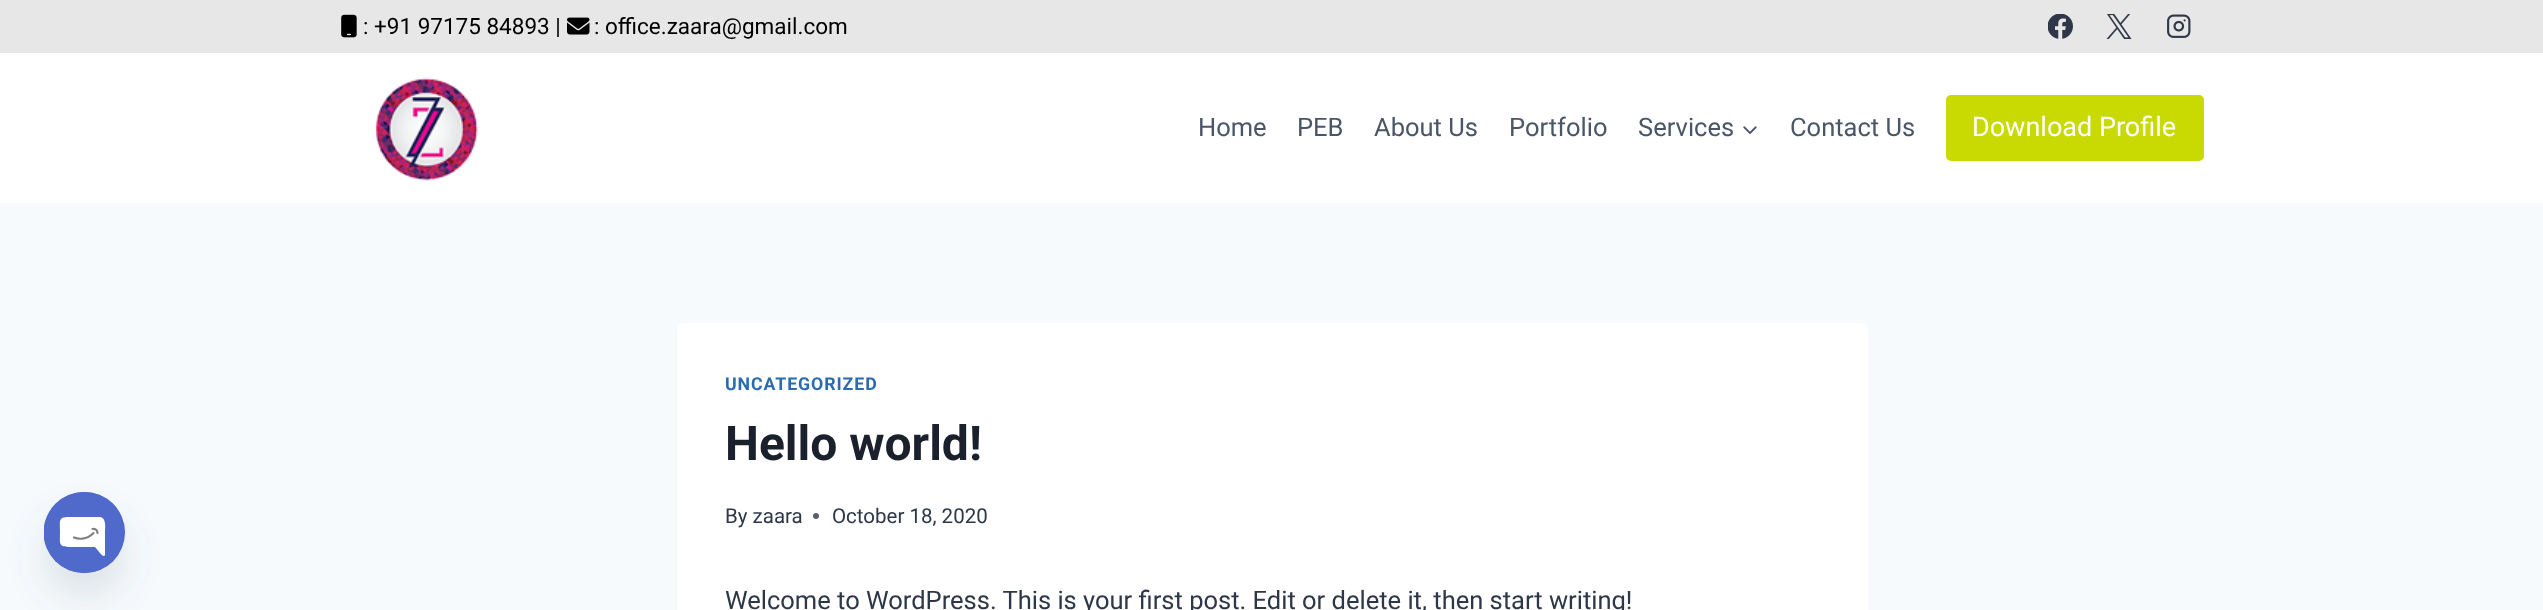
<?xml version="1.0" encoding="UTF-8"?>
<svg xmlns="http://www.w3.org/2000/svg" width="2543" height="610">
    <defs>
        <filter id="blur1" x="-50%" y="-200%" width="200%" height="500%"><feGaussianBlur stdDeviation="18"/></filter>
        <clipPath id="clip1"><rect x="44" y="492" width="81" height="81"/></clipPath>
    </defs>
    <rect width="100%" height="100%" fill="#F7FAFC"/>
    <rect x="44" y="516" width="81" height="81" rx="40.5" fill="#49687E" fill-opacity="0.16" filter="url(#blur1)"/>
    <circle cx="84.5" cy="532.5" r="40.5" fill="#4F6ACA"/>
    <g clip-path="url(#clip1)">
        <circle cx="84" cy="532.5" r="40.5" fill="#4F6ACA"/>
    </g>
    <path d="M 99 517 H 71 C 58 517 60 519 60 532 C 60 544 58 547 71 547 H 95 L 100 553 C 100 553 104 558 105 555 V 533 C 105 528 107 517 99 517 Z" fill="#FFFFFF"/>
    <path d="M 74 537.5 C 77.5 539 86.5 540.5 93.5 533 M 97.5 533 C 97.5 531.5 96.5 528 92.5 529" fill="none" stroke="#808080" stroke-width="2.2" stroke-linecap="round" stroke-linejoin="round"/>
    <rect x="0" y="53" width="2543" height="150" fill="#FFFFFF"/>
    <rect x="0" y="0" width="2543" height="53" fill="#E7E7E7"/>
    <image x="341" y="14" width="16" height="24" href="img_01.png"/>
    <text x="363" y="34" font-family="Roboto" font-size="22.5" fill="#000000">: +91 97175 84893 |</text>
    <image x="567" y="17" width="23" height="18" href="img_02.png"/>
    <text x="594" y="34" font-family="Roboto" font-size="22.5" fill="#000000">: office.zaara@gmail.com</text>
    <image x="2048" y="14" width="25" height="25" href="img_03.png"/>
    <image x="2106" y="14" width="26" height="25" href="img_04.png"/>
    <image x="2167" y="14" width="24" height="24" href="img_05.png"/>
    <image x="375" y="77" width="103" height="104" href="img_06.png"/>
    <text x="1198" y="136" font-family="Roboto" font-size="25.5" fill="#4A5568">Home</text>
    <text x="1297" y="136" font-family="Roboto" font-size="25.5" fill="#4A5568">PEB</text>
    <text x="1374" y="136" font-family="Roboto" font-size="25.5" fill="#4A5568">About Us</text>
    <text x="1509" y="136" font-family="Roboto" font-size="25.5" fill="#4A5568">Portfolio</text>
    <text x="1638" y="136" font-family="Roboto" font-size="25.5" fill="#4A5568">Services</text>
    <image x="1743" y="126" width="14" height="8" href="img_07.png"/>
    <text x="1790" y="136" font-family="Roboto" font-size="25.5" fill="#4A5568">Contact Us</text>
    <rect x="1946" y="95" width="258" height="66" rx="5" fill="#C8DA02"/>
    <text x="1972" y="136" font-family="Roboto" font-size="27" fill="#FFFFFF">Download Profile</text>
    <rect x="677" y="323" width="1191" height="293" rx="6" fill="#FFFFFF"/>
    <text x="725" y="390" font-family="Roboto" font-size="17.75" font-weight="700" letter-spacing="0.9" fill="#2B6CB0">UNCATEGORIZED</text>
    <text x="725" y="460" font-family="Roboto" font-size="48" font-weight="700" fill="#1A202C">Hello world!</text>
    <text x="725" y="523" font-family="Roboto" font-size="20.5" fill="#2D3748">By zaara</text>
    <circle cx="816" cy="516" r="3" fill="#575F6D"/>
    <text x="832" y="523" font-family="Roboto" font-size="20.5" fill="#2D3748">October 18, 2020</text>
    <text x="725" y="609" font-family="Roboto" font-size="25.5" fill="#2D3748">Welcome to WordPress. This is your first post. Edit or delete it, then start writing!</text>
</svg>
